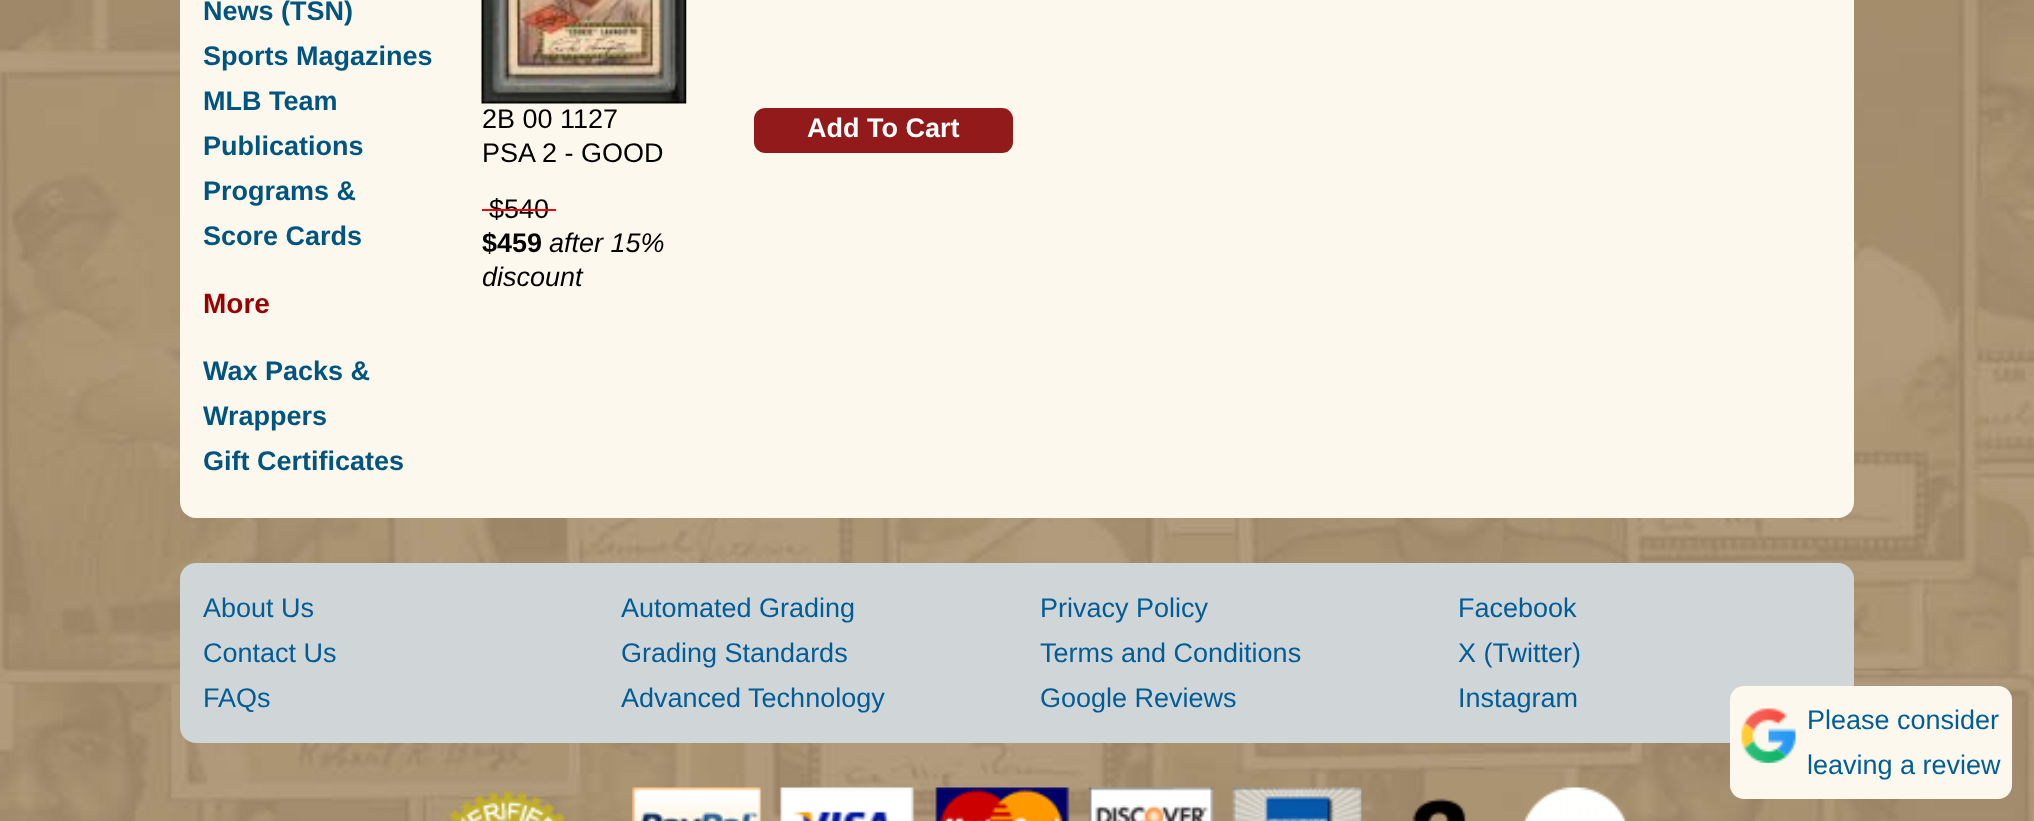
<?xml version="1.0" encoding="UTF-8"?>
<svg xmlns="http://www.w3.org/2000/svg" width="2034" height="821">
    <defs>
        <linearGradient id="g1" gradientUnits="userSpaceOnUse" x1="883" y1="108" x2="883" y2="153"><stop offset="0" stop-color="#931A1A"/><stop offset="1" stop-color="#911A1A"/></linearGradient>
    </defs>
    <rect width="100%" height="100%" fill="#FFFFFF"/>
    <image x="0" y="0" width="2034" height="821" href="img_01.png"/>
    <rect x="180" y="-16" width="1674" height="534" rx="16" fill="#FDF8ED"/>
    <text font-family="Liberation Sans" font-size="27" font-weight="700" fill="#005580">
        <tspan x="203" y="20">News (TSN)</tspan>
        <tspan x="203" y="65">Sports Magazines</tspan>
        <tspan x="203" y="110">MLB Team</tspan>
        <tspan x="203" y="155">Publications</tspan>
        <tspan x="203" y="200">Programs &amp;</tspan>
        <tspan x="203" y="245">Score Cards</tspan>
    </text>
    <text x="203" y="313" font-family="Liberation Sans" font-size="28" font-weight="700" fill="#990000">More</text>
    <text font-family="Liberation Sans" font-size="27" font-weight="700" fill="#005580">
        <tspan x="203" y="380">Wax Packs &amp;</tspan>
        <tspan x="203" y="425">Wrappers</tspan>
        <tspan x="203" y="470">Gift Certificates</tspan>
    </text>
    <image x="481" y="0" width="206" height="104" href="img_02.png"/>
    <text font-family="Liberation Sans" font-size="27" fill="#000000">
        <tspan x="482" y="128">2B 00 1127</tspan>
        <tspan x="482" y="162">PSA 2 - GOOD</tspan>
    </text>
    <text x="489" y="218" font-family="Liberation Sans" font-size="27" fill="#000000">$540</text>
    <rect x="482" y="209" width="74" height="2" fill="#FF0000"/>
    <text x="482" y="252" font-family="Liberation Sans" font-size="27" font-weight="700" fill="#000000">$459</text>
    <text x="549" y="252" font-family="Liberation Sans" font-size="27" font-style="italic" fill="#000000">after 15%</text>
    <text x="482" y="286" font-family="Liberation Sans" font-size="27" font-style="italic" fill="#000000">discount</text>
    <rect x="754" y="108" width="259" height="45" rx="11" fill="url(#g1)"/>
    <text x="807" y="137" font-family="Liberation Sans" font-size="27" font-weight="700" fill="#FFFFFF">Add To Cart</text>
    <rect x="180" y="563" width="1674" height="180" rx="16" fill="#D0D5D8"/>
    <text font-family="Liberation Sans" font-size="27" fill="#005D97">
        <tspan x="203" y="617">About Us</tspan>
        <tspan x="203" y="662">Contact Us</tspan>
        <tspan x="203" y="707">FAQs</tspan>
    </text>
    <text font-family="Liberation Sans" font-size="27" fill="#005D97">
        <tspan x="621" y="617">Automated Grading</tspan>
        <tspan x="621" y="662">Grading Standards</tspan>
        <tspan x="621" y="707">Advanced Technology</tspan>
    </text>
    <text font-family="Liberation Sans" font-size="27" fill="#005D97">
        <tspan x="1040" y="617">Privacy Policy</tspan>
        <tspan x="1040" y="662">Terms and Conditions</tspan>
        <tspan x="1040" y="707">Google Reviews</tspan>
    </text>
    <text font-family="Liberation Sans" font-size="27" fill="#005D97">
        <tspan x="1458" y="617">Facebook</tspan>
        <tspan x="1458" y="662">X (Twitter)</tspan>
        <tspan x="1458" y="707">Instagram</tspan>
    </text>
    <image x="444" y="791" width="122" height="30" href="img_03.png"/>
    <image x="632" y="787" width="730" height="34" href="img_04.png"/>
    <image x="1412" y="798" width="54" height="23" href="img_05.png"/>
    <image x="1523" y="787" width="104" height="34" href="img_06.png"/>
    <rect x="1730" y="686" width="282" height="113" rx="14" fill="#FDF8ED"/>
    <image x="1741" y="708" width="55" height="55" href="img_07.png"/>
    <text font-family="Liberation Sans" font-size="27" fill="#005D97">
        <tspan x="1807" y="729">Please consider</tspan>
        <tspan x="1807" y="774">leaving a review</tspan>
    </text>
</svg>
